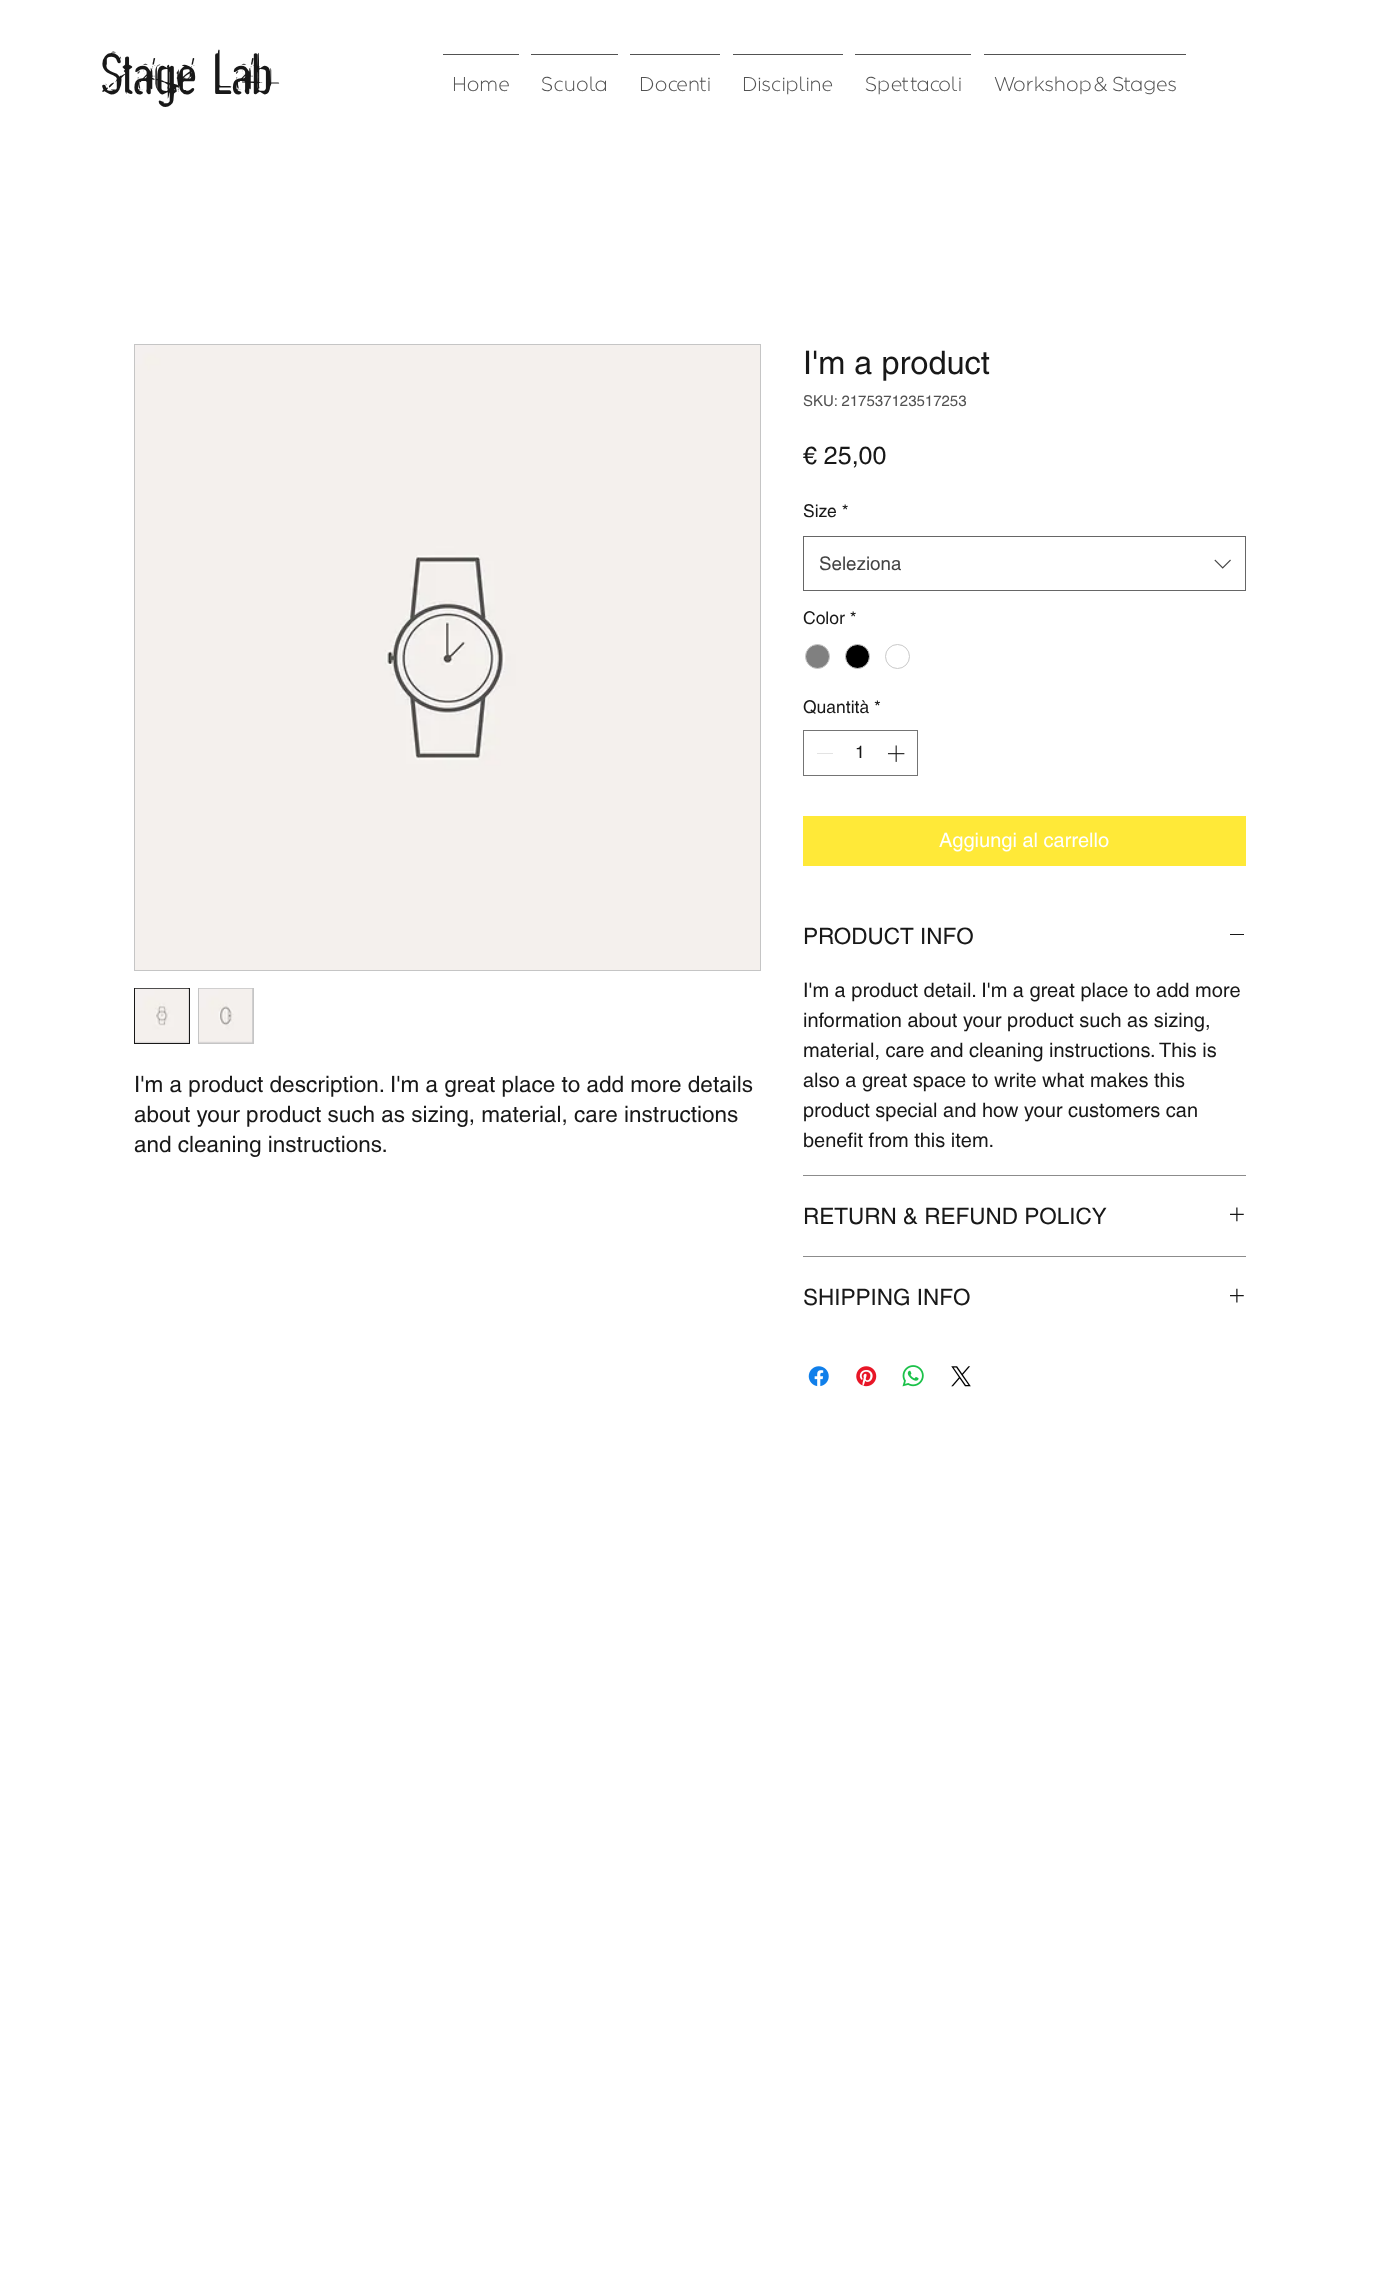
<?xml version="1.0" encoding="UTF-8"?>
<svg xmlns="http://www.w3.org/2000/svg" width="1379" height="2292">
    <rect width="100%" height="100%" fill="#FFFFFF"/>
    <text x="100" y="95" font-family="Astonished" font-size="64" fill="#181818">Stage Lab</text>
    <rect x="443" y="54" width="76" height="1" fill="#525252"/>
    <text x="453" y="91" font-family="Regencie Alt" font-size="20" font-weight="300" fill="#525252">Home</text>
    <rect x="531" y="54" width="87" height="1" fill="#525252"/>
    <text x="541" y="91" font-family="Regencie Alt" font-size="20" font-weight="300" fill="#525252">Scuola</text>
    <rect x="630" y="54" width="90" height="1" fill="#525252"/>
    <text x="640" y="91" font-family="Regencie Alt" font-size="20" font-weight="300" fill="#525252">Docenti</text>
    <rect x="733" y="54" width="110" height="1" fill="#525252"/>
    <text x="743" y="91" font-family="Regencie Alt" font-size="20" font-weight="300" fill="#525252">Discipline</text>
    <rect x="855" y="54" width="116" height="1" fill="#525252"/>
    <text x="865" y="91" font-family="Regencie Alt" font-size="20" font-weight="300" fill="#525252">Spettacoli</text>
    <rect x="984" y="54" width="202" height="1" fill="#525252"/>
    <text x="994" y="91" font-family="Regencie Alt" font-size="20" font-weight="300" fill="#525252">Workshop &amp; Stages</text>
    <rect x="134.5" y="344.5" width="626" height="626" fill="none" stroke="#C5C5C5"/>
    <image x="135" y="345" width="625" height="625" href="img_01.png"/>
    <rect x="134.5" y="988.5" width="55" height="55" fill="#C5C5C5" stroke="#181818"/>
    <image x="135" y="988" width="54" height="55" href="img_02.png"/>
    <rect x="198" y="988" width="56" height="56" fill="#C5C5C5"/>
    <image x="199" y="988" width="54" height="55" href="img_03.png"/>
    <text font-family="helvetica" font-size="22.5" fill="#181818">
        <tspan x="134" y="1092">I'm a product description. I'm a great place to add more details</tspan>
        <tspan x="134" y="1122">about your product such as sizing, material, care instructions</tspan>
        <tspan x="134" y="1152">and cleaning instructions.</tspan>
    </text>
    <text x="803" y="374" font-family="helvetica" font-size="32.5" fill="#181818">I'm a product</text>
    <text x="803" y="406" font-family="helvetica" font-size="15" fill="#525252">SKU: 217537123517253</text>
    <text x="803" y="464" font-family="helvetica" font-size="25" fill="#181818">€ 25,00</text>
    <text x="803" y="517" font-family="helvetica" font-size="17.5" fill="#181818">Size *</text>
    <rect x="803.5" y="536.5" width="442" height="54" fill="none" stroke="#666666"/>
    <text x="819" y="570" font-family="helvetica" font-size="18.75" fill="#444444">Seleziona</text>
    <image x="1214" y="559" width="17" height="10" href="img_04.png"/>
    <text x="803" y="624" font-family="helvetica" font-size="17.5" fill="#181818">Color *</text>
    <circle cx="817.5" cy="656.5" r="12" fill="#808080" stroke="#C9C9C9"/>
    <circle cx="857.5" cy="656.5" r="12" fill="#000000" stroke="#C9C9C9"/>
    <circle cx="897.5" cy="656.5" r="12" fill="none" stroke="#C9C9C9"/>
    <text x="803" y="713" font-family="helvetica" font-size="17.5" fill="#181818">Quantità *</text>
    <rect x="803.5" y="730.5" width="114" height="45" fill="none" stroke="#747474"/>
    <rect x="817" y="753" width="16" height="1" fill="#E3E3E3"/>
    <text x="855" y="758" font-family="helvetica" font-size="17.5" fill="#181818">1</text>
    <image x="887" y="745" width="18" height="17" href="img_05.png"/>
    <rect x="803" y="816" width="443" height="50" fill="#FFE938"/>
    <text x="939" y="847" font-family="helvetica" font-size="20" fill="#FFFFFF">Aggiungi al carrello</text>
    <rect x="803" y="1175" width="443" height="1" fill="#8C8C8C"/>
    <text x="803" y="944" font-family="helvetica" font-size="22.5" fill="#181818">PRODUCT INFO</text>
    <rect x="1230" y="934" width="14" height="1" fill="#181818"/>
    <text font-family="helvetica" font-size="20" fill="#181818">
        <tspan x="803" y="997">I'm a product detail. I'm a great place to add more</tspan>
        <tspan x="803" y="1027">information about your product such as sizing,</tspan>
        <tspan x="803" y="1057">material, care and cleaning instructions. This is</tspan>
        <tspan x="803" y="1087">also a great space to write what makes this</tspan>
        <tspan x="803" y="1117">product special and how your customers can</tspan>
        <tspan x="803" y="1147">benefit from this item.</tspan>
    </text>
    <rect x="803" y="1256" width="443" height="1" fill="#8C8C8C"/>
    <text x="803" y="1224" font-family="helvetica" font-size="22.5" fill="#181818">RETURN &amp; REFUND POLICY</text>
    <image x="1230" y="1207" width="14" height="15" href="img_06.png"/>
    <text x="803" y="1305" font-family="helvetica" font-size="22.5" fill="#181818">SHIPPING INFO</text>
    <image x="1230" y="1288" width="14" height="15" href="img_07.png"/>
    <image x="808" y="1366" width="21" height="21" href="img_08.png"/>
    <image x="856" y="1366" width="21" height="21" href="img_09.png"/>
    <image x="902" y="1365" width="22" height="22" href="img_10.png"/>
    <image x="951" y="1366" width="20" height="21" href="img_11.png"/>
</svg>
